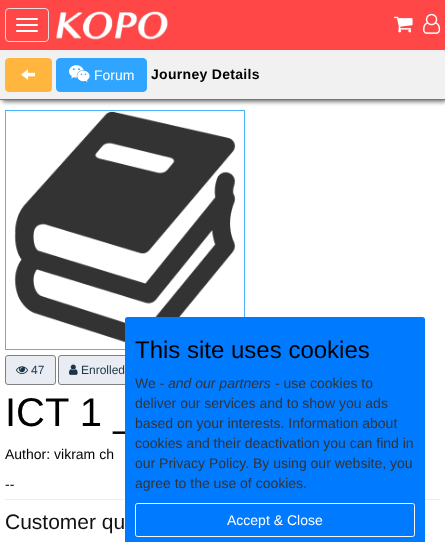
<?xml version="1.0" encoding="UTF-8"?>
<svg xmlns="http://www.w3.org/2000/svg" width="445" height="542">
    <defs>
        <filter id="blur1" x="-50%" y="-200%" width="200%" height="500%"><feGaussianBlur stdDeviation="0.5"/></filter>
        <filter id="blur2" x="-50%" y="-200%" width="200%" height="500%"><feGaussianBlur stdDeviation="2"/></filter>
    </defs>
    <rect width="100%" height="100%" fill="#FFFFFF"/>
    <rect x="0" y="51" width="445" height="50" rx="4" fill="#000000" fill-opacity="0.05" filter="url(#blur1)"/>
    <rect x="2" y="52" width="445" height="50" rx="3" fill="#000000" fill-opacity="0.5" filter="url(#blur2)"/>
    <rect x="0" y="0" width="445" height="50" fill="#FF4747"/>
    <rect x="5.5" y="8.5" width="43" height="33" rx="3.5" fill="none" stroke="#DDDDDD"/>
    <rect x="16" y="18" width="22" height="2" rx="1" fill="#FFFFFF"/>
    <rect x="16" y="24" width="22" height="2" rx="1" fill="#FFFFFF"/>
    <rect x="16" y="30" width="22" height="2" rx="1" fill="#FFFFFF"/>
    <image x="56" y="11" width="112" height="29" href="img_01.png"/>
    <image x="394" y="16" width="19" height="17" href="img_02.png"/>
    <image x="423" y="13" width="18" height="21" href="img_03.png"/>
    <path d="M 3 50 H 442 C 443.5 50 445 51.5 445 53 V 100 H 0 V 53 C 0 51.5 1.5 50 3 50 Z" fill="#F1F1F1"/>
    <rect x="0" y="99" width="445" height="1" fill="#797979"/>
    <rect x="5.5" y="58.5" width="46" height="33" rx="3.5" fill="#FFB53E" stroke="#FFB53E"/>
    <image x="21" y="69" width="14" height="11" href="img_04.png"/>
    <rect x="56.5" y="58.5" width="90" height="33" rx="3.5" fill="#30A5FF" stroke="#30A5FF"/>
    <image x="69" y="65" width="21" height="17" href="img_05.png"/>
    <text x="94" y="80" font-family="Liberation Sans" font-size="14" fill="#FFFFFF">Forum</text>
    <text x="151" y="79" font-family="Liberation Sans" font-size="14" font-weight="700" letter-spacing="0.3" fill="#000000">Journey Details</text>
    <rect x="5.5" y="110.5" width="239" height="239" fill="none" stroke="#4BB4FB"/>
    <image x="14" y="111" width="222" height="232" href="img_06.png"/>
    <rect x="5.5" y="355.5" width="50" height="29" rx="2.5" fill="#E9ECF2" stroke="#808080"/>
    <image x="16" y="366" width="12" height="8" href="img_07.png"/>
    <text x="31" y="374" font-family="Liberation Sans" font-size="12" fill="#1B3548">47</text>
    <rect x="58.5" y="355.5" width="87" height="29" rx="2.5" fill="#E9ECF2" stroke="#808080"/>
    <image x="69" y="364" width="9" height="11" href="img_08.png"/>
    <text x="81" y="374" font-family="Liberation Sans" font-size="12" fill="#1B3548">Enrolled</text>
    <text x="5" y="426" font-family="Liberation Sans" font-size="40" fill="#000000">ICT 1 _</text>
    <text x="5" y="459" font-family="Liberation Sans" font-size="14" fill="#000000">Author: vikram ch</text>
    <text x="5" y="489" font-family="Liberation Sans" font-size="14" fill="#000000">--</text>
    <rect x="5" y="499" width="435" height="1" fill="#EEEEEE"/>
    <text x="5" y="529" font-family="Liberation Sans" font-size="21" fill="#111111">Customer qu</text>
    <path d="M 127.5 317 H 422.5 C 424 317 425 318 425 319.5 V 542 H 125 V 319.5 C 125 318 126 317 127.5 317 Z" fill="#007BFF"/>
    <text x="135" y="358" font-family="Liberation Sans" font-size="24" fill="#000000">This site uses cookies</text>
    <text x="135" y="388" font-family="Liberation Sans" font-size="14" fill="#333333">We -</text>
    <text x="168" y="388" font-family="Liberation Sans" font-size="14" font-style="italic" fill="#333333">and our partners</text>
    <text x="275" y="388" font-family="Liberation Sans" font-size="14" fill="#333333">- use cookies to</text>
    <text font-family="Liberation Sans" font-size="14" fill="#333333">
        <tspan x="135" y="408">deliver our services and to show you ads</tspan>
        <tspan x="135" y="428">based on your interests. Information about</tspan>
        <tspan x="135" y="448">cookies and their deactivation you can find in</tspan>
        <tspan x="135" y="468">our Privacy Policy. By using our website, you</tspan>
        <tspan x="135" y="488">agree to the use of cookies.</tspan>
    </text>
    <rect x="135.5" y="503.5" width="279" height="33" rx="2" fill="none" stroke="#F8F9FA"/>
    <text x="227" y="525" font-family="Liberation Sans" font-size="14" fill="#FFFFFF">Accept &amp; Close</text>
</svg>
